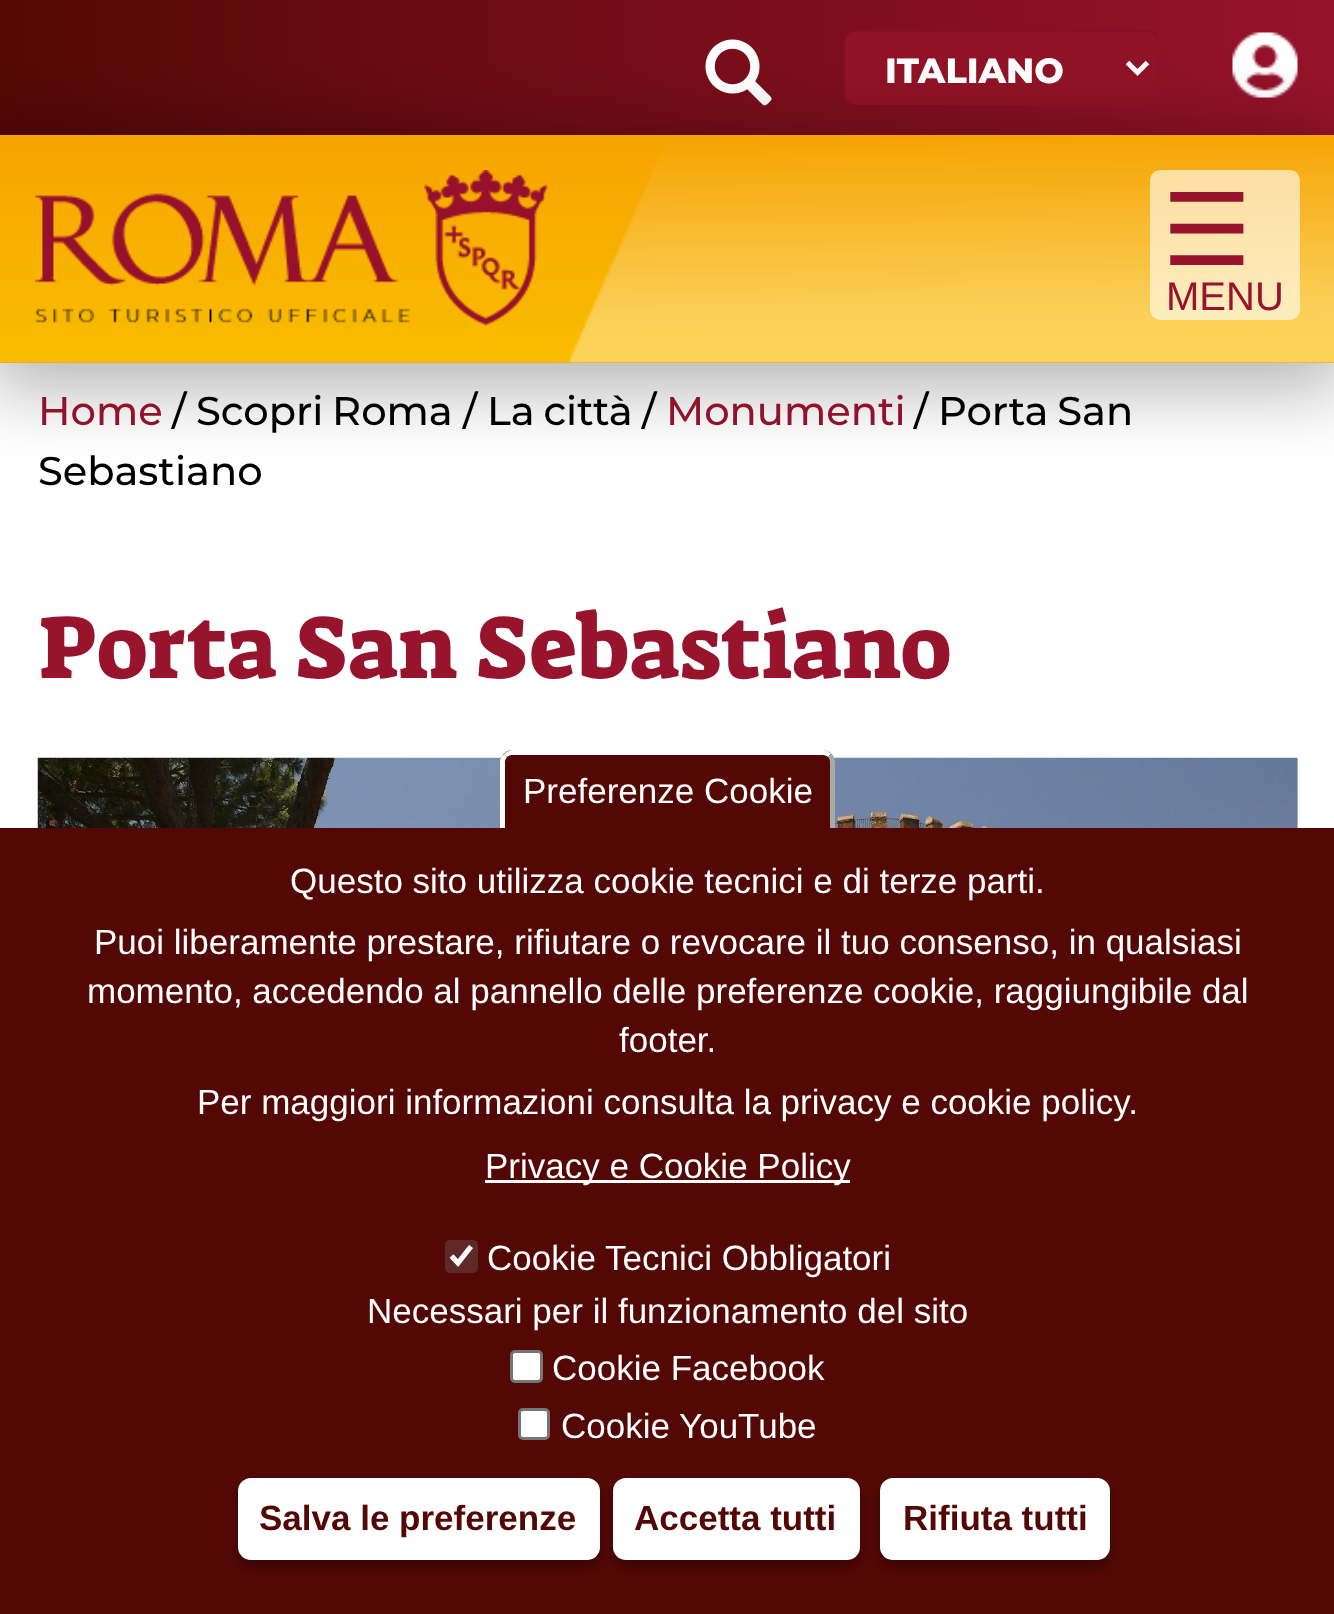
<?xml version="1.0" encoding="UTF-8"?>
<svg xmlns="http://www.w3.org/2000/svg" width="1334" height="1614">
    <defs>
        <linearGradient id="g1" gradientUnits="userSpaceOnUse" x1="0" y1="68" x2="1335" y2="67"><stop offset="0" stop-color="#540805"/><stop offset="1" stop-color="#97122B"/></linearGradient>
        <filter id="blur1" x="-50%" y="-200%" width="200%" height="500%"><feGaussianBlur stdDeviation="37.5"/></filter>
        <filter id="blur2" x="-50%" y="-200%" width="200%" height="500%"><feGaussianBlur stdDeviation="6"/></filter>
    </defs>
    <rect width="100%" height="100%" fill="#FFFFFF"/>
    <rect x="0" y="0" width="1334" height="135" fill="url(#g1)"/>
    <image x="705" y="39" width="67" height="67" href="img_01.png"/>
    <rect x="845" y="30" width="313" height="75" rx="10" fill="#911226"/>
    <path d="M 855 32 H 1148 C 1153 32 1158 37 1158 42 V 40 C 1158 34 1154 30 1148 30 H 855 C 849 30 845 34 845 40 V 42 C 845 37 849 32 855 32 Z" fill="#000000" fill-opacity="0.07"/>
    <path d="M 1127.5 62.5 L 1137.5 72.5 L 1147.5 62.5" fill="none" stroke="#FFFFFF" stroke-width="5"/>
    <text x="885" y="83" font-family="Montserrat" font-size="35" font-weight="800" fill="#FFFFFF">ITALIANO</text>
    <image x="1232" y="32" width="66" height="66" href="img_02.png"/>
    <rect x="-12" y="135" width="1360" height="253" fill="#000000" fill-opacity="0.3" filter="url(#blur1)"/>
    <rect x="0" y="362" width="1334" height="1" fill="#F5A100"/>
    <image x="0" y="135" width="1334" height="228" href="img_03.png"/>
    <image x="35" y="170" width="513" height="156" href="img_04.png"/>
    <rect x="1150" y="170" width="150" height="150" rx="10" fill="#FFFFFF" fill-opacity="0.6"/>
    <text x="1162" y="265" font-family="DejaVu Sans" font-size="100" letter-spacing="36" fill="#98132C">☰</text>
    <text x="1166" y="310" font-family="Liberation Sans" font-size="40" fill="#98132C">MENU</text>
    <text x="38" y="425" font-family="Montserrat" font-size="40" font-weight="500" fill="#91132B">Home</text>
    <text x="172" y="425" font-family="Montserrat" font-size="40" font-weight="500" fill="#000000">/</text>
    <text x="196" y="425" word-spacing="-2" font-family="Montserrat" font-size="40" font-weight="500" fill="#000000">Scopri Roma</text>
    <text x="463" y="425" font-family="Montserrat" font-size="40" font-weight="500" fill="#000000">/</text>
    <text x="487" y="425" word-spacing="-2" font-family="Montserrat" font-size="40" font-weight="500" fill="#000000">La città</text>
    <text x="642" y="425" font-family="Montserrat" font-size="40" font-weight="500" fill="#000000">/</text>
    <text x="666" y="425" font-family="Montserrat" font-size="40" font-weight="500" fill="#91132B">Monumenti</text>
    <text x="914" y="425" font-family="Montserrat" font-size="40" font-weight="500" fill="#000000">/</text>
    <text x="938" y="425" word-spacing="-2" font-family="Montserrat" font-size="40" font-weight="500" fill="#000000">Porta San</text>
    <text x="38" y="485" font-family="Montserrat" font-size="40" font-weight="500" fill="#000000">Sebastiano</text>
    <text x="38" y="678" font-family="Suez One" font-size="90" fill="#98132C">Porta San Sebastiano</text>
    <rect x="1297" y="758" width="1" height="70" fill="#BBBBBB"/>
    <image x="37" y="757" width="1261" height="71" href="img_05.png"/>
    <rect x="0" y="828" width="1334" height="786" fill="#540805"/>
    <path d="M 513 750 H 822 C 829 750 835 756 835 763 V 828 H 500 V 763 C 500 756 506 750 513 750 Z" fill="#540805"/>
    <path d="M 513 750 C 509 750 506 752 504 754 L 507 757 C 508 756 510 755 513 755 H 823 C 825 755 827 756 828 757 L 831 754 C 829 752 826 750 823 750 Z" fill="#FFFFFF"/>
    <path d="M 830 828 V 762 C 830 760 829 758 828 757 L 831 754 C 834 756 835 759 835 762 V 828 Z" fill="#AAAAAA"/>
    <path d="M 500 828 V 761 C 500 758 502 756 504 754 L 507 757 C 506 758 505 760 505 762 V 828 Z" fill="#FFFFFF"/>
    <text x="523" y="803" font-family="Liberation Sans" font-size="35" fill="#FFFFFF">Preferenze Cookie</text>
    <text x="290" y="893" font-family="Liberation Sans" font-size="35" fill="#FFFFFF">Questo sito utilizza cookie tecnici e di terze parti.</text>
    <text x="94" y="954" font-family="Liberation Sans" font-size="35" fill="#FFFFFF">Puoi liberamente prestare, rifiutare o revocare il tuo consenso, in qualsiasi</text>
    <text x="87" y="1003" font-family="Liberation Sans" font-size="35" fill="#FFFFFF">momento, accedendo al pannello delle preferenze cookie, raggiungibile dal</text>
    <text x="619" y="1052" font-family="Liberation Sans" font-size="35" fill="#FFFFFF">footer.</text>
    <text x="197" y="1114" font-family="Liberation Sans" font-size="35" fill="#FFFFFF">Per maggiori informazioni consulta la privacy e cookie policy.</text>
    <rect x="485" y="1180" width="365" height="3" fill="#FFFFFF"/>
    <text x="485" y="1178" font-family="Liberation Sans" font-size="35" fill="#FFFFFF">Privacy e Cookie Policy</text>
    <rect x="445" y="1240" width="33" height="33" rx="5" fill="#5E2927"/>
    <path d="M 451.5 1256 L 458 1263 L 471 1246.5" fill="none" stroke="#FFFFFF" stroke-width="5.2"/>
    <text x="487" y="1270" font-family="Liberation Sans" font-size="35" fill="#FFFFFF">Cookie Tecnici Obbligatori</text>
    <text x="367" y="1323" font-family="Liberation Sans" font-size="35" fill="#FFFFFF">Necessari per il funzionamento del sito</text>
    <rect x="511.5" y="1351.5" width="30" height="30" rx="3.5" fill="#FFFFFF" stroke="#767676" stroke-width="3"/>
    <text x="552" y="1380" font-family="Liberation Sans" font-size="35" fill="#FFFFFF">Cookie Facebook</text>
    <rect x="519.5" y="1409.5" width="29" height="29" rx="3.5" fill="#FFFFFF" stroke="#767676" stroke-width="3"/>
    <text x="561" y="1438" font-family="Liberation Sans" font-size="35" fill="#FFFFFF">Cookie YouTube</text>
    <rect x="238" y="1485" width="362" height="83" rx="13" fill="#000000" fill-opacity="0.3" filter="url(#blur2)"/>
    <rect x="238" y="1478" width="362" height="82" rx="13" fill="#FFFFFF"/>
    <text x="259" y="1530" font-family="Liberation Sans" font-size="35" font-weight="700" fill="#540805">Salva le preferenze</text>
    <rect x="613" y="1485" width="247" height="83" rx="13" fill="#000000" fill-opacity="0.3" filter="url(#blur2)"/>
    <rect x="613" y="1478" width="247" height="82" rx="13" fill="#FFFFFF"/>
    <text x="634" y="1530" font-family="Liberation Sans" font-size="35" font-weight="700" fill="#540805">Accetta tutti</text>
    <rect x="880" y="1485" width="230" height="83" rx="13" fill="#000000" fill-opacity="0.3" filter="url(#blur2)"/>
    <rect x="880" y="1478" width="230" height="82" rx="13" fill="#FFFFFF"/>
    <text x="903" y="1530" font-family="Liberation Sans" font-size="35" font-weight="700" fill="#540805">Rifiuta tutti</text>
</svg>
